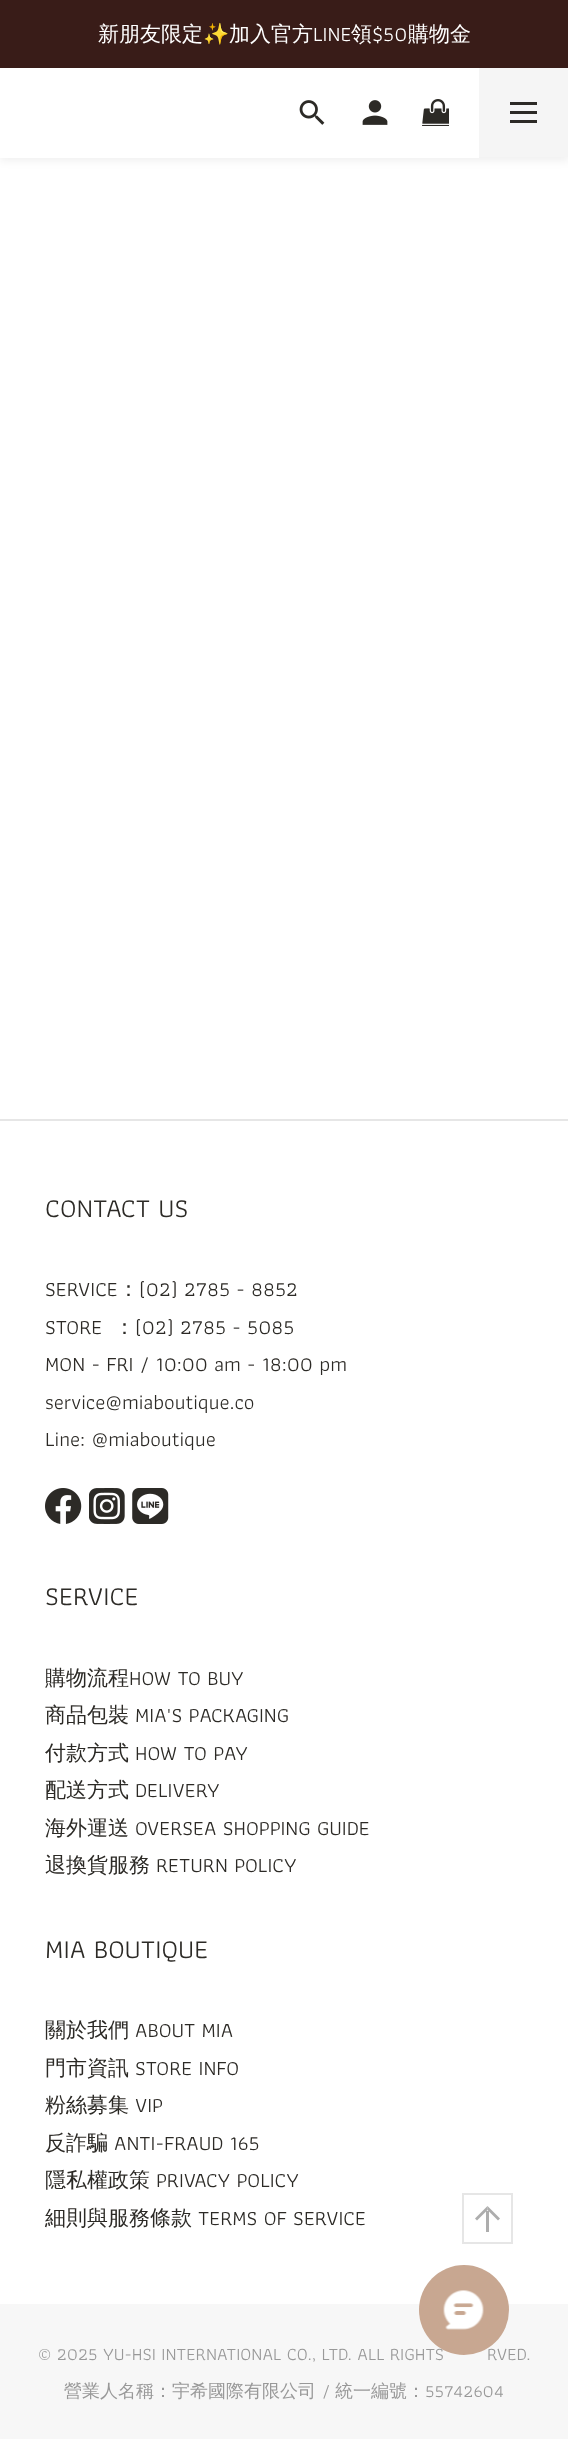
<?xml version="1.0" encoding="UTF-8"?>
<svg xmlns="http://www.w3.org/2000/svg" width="568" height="2439">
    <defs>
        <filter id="blur1" x="-50%" y="-200%" width="200%" height="500%"><feGaussianBlur stdDeviation="4.5"/></filter>
    </defs>
    <rect width="100%" height="100%" fill="#FFFFFF"/>
    <rect x="0" y="0" width="568" height="68" fill="#391C18"/>
    <text x="98" y="41" font-family="WenQuanYi Zen Hei" font-size="21" font-weight="500" fill="#FFFFFF">新朋友限定</text>
    <text x="203" y="41" font-family="Noto Color Emoji" font-size="21" fill="#FFFFFF">✨</text>
    <text x="229" y="41" font-family="WenQuanYi Zen Hei" font-size="21" font-weight="500" fill="#FFFFFF">加入官方</text>
    <text x="313" y="41" font-family="Athiti" font-size="21" fill="#FFFFFF">LINE</text>
    <text x="351" y="41" font-family="WenQuanYi Zen Hei" font-size="21" font-weight="500" fill="#FFFFFF">領</text>
    <text x="372" y="41" font-family="Athiti" font-size="21" fill="#FFFFFF">$50</text>
    <text x="408" y="41" font-family="WenQuanYi Zen Hei" font-size="21" font-weight="500" fill="#FFFFFF">購物金</text>
    <rect x="0" y="71" width="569" height="90" fill="#000000" fill-opacity="0.06" filter="url(#blur1)"/>
    <rect x="0" y="68" width="479" height="90" fill="#FFFFFF"/>
    <image x="299" y="100" width="26" height="25" href="img_01.png"/>
    <image x="362" y="100" width="26" height="25" href="img_02.png"/>
    <image x="422" y="99" width="27" height="27" href="img_03.png"/>
    <rect x="479" y="68" width="89" height="89" fill="#F5F5F5"/>
    <rect x="510" y="111" width="27" height="3" fill="#2C2A26"/>
    <rect x="510" y="102" width="27" height="3" fill="#2C2A26"/>
    <rect x="510" y="120" width="27" height="3" fill="#2C2A26"/>
    <rect x="0" y="1119" width="568" height="2" fill="#E6E6E6"/>
    <text x="45" y="1217" font-family="Athiti" font-size="27" fill="#2C2A26">CONTACT US</text>
    <text x="45" y="1296" font-family="Athiti" font-size="21" fill="#2C2A26">SERVICE</text>
    <text x="118" y="1296" font-family="WenQuanYi Zen Hei" font-size="21" font-weight="500" fill="#2C2A26">：</text>
    <text x="139" y="1296" font-family="Athiti" font-size="21" fill="#2C2A26">(02) 2785 - 8852</text>
    <text x="45" y="1334" font-family="Athiti" font-size="21" fill="#2C2A26">STORE</text>
    <text x="114" y="1334" font-family="WenQuanYi Zen Hei" font-size="21" font-weight="500" fill="#2C2A26">：</text>
    <text x="135" y="1334" font-family="Athiti" font-size="21" fill="#2C2A26">(02) 2785 - 5085</text>
    <text font-family="Athiti" font-size="21" fill="#2C2A26">
        <tspan x="45" y="1371">MON - FRI / 10:00 am - 18:00 pm</tspan>
        <tspan x="45" y="1409">service@miaboutique.co</tspan>
        <tspan x="45" y="1446">Line: @miaboutique</tspan>
    </text>
    <image x="45" y="1488" width="37" height="36" href="img_04.png"/>
    <image x="89" y="1488" width="36" height="36" href="img_05.png"/>
    <image x="132" y="1488" width="37" height="36" href="img_06.png"/>
    <text x="45" y="1605" font-family="Athiti" font-size="27" fill="#2C2A26">SERVICE</text>
    <text x="45" y="1685" font-family="WenQuanYi Zen Hei" font-size="21" font-weight="500" fill="#2C2A26">購物流程</text>
    <text x="129" y="1685" font-family="Athiti" font-size="21" fill="#2C2A26">HOW TO BUY</text>
    <text x="45" y="1722" font-family="WenQuanYi Zen Hei" font-size="21" font-weight="500" fill="#2C2A26">商品包裝</text>
    <text x="135" y="1722" font-family="Athiti" font-size="21" fill="#2C2A26">MIA'S PACKAGING</text>
    <text x="45" y="1760" font-family="WenQuanYi Zen Hei" font-size="21" font-weight="500" fill="#2C2A26">付款方式</text>
    <text x="135" y="1760" font-family="Athiti" font-size="21" fill="#2C2A26">HOW TO PAY</text>
    <text x="45" y="1797" font-family="WenQuanYi Zen Hei" font-size="21" font-weight="500" fill="#2C2A26">配送方式</text>
    <text x="135" y="1797" font-family="Athiti" font-size="21" fill="#2C2A26">DELIVERY</text>
    <text x="45" y="1835" font-family="WenQuanYi Zen Hei" font-size="21" font-weight="500" fill="#2C2A26">海外運送</text>
    <text x="135" y="1835" font-family="Athiti" font-size="21" fill="#2C2A26">OVERSEA SHOPPING GUIDE</text>
    <text x="45" y="1872" font-family="WenQuanYi Zen Hei" font-size="21" font-weight="500" fill="#2C2A26">退換貨服務</text>
    <text x="156" y="1872" font-family="Athiti" font-size="21" fill="#2C2A26">RETURN POLICY</text>
    <text x="45" y="1958" font-family="Athiti" font-size="27" fill="#2C2A26">MIA BOUTIQUE</text>
    <text x="45" y="2037" font-family="WenQuanYi Zen Hei" font-size="21" font-weight="500" fill="#2C2A26">關於我們</text>
    <text x="135" y="2037" font-family="Athiti" font-size="21" fill="#2C2A26">ABOUT MIA</text>
    <text x="45" y="2075" font-family="WenQuanYi Zen Hei" font-size="21" font-weight="500" fill="#2C2A26">門市資訊</text>
    <text x="135" y="2075" font-family="Athiti" font-size="21" fill="#2C2A26">STORE INFO</text>
    <text x="45" y="2112" font-family="WenQuanYi Zen Hei" font-size="21" font-weight="500" fill="#2C2A26">粉絲募集</text>
    <text x="135" y="2112" font-family="Athiti" font-size="21" fill="#2C2A26">VIP</text>
    <text x="45" y="2150" font-family="WenQuanYi Zen Hei" font-size="21" font-weight="500" fill="#2C2A26">反詐騙</text>
    <text x="114" y="2150" font-family="Athiti" font-size="21" fill="#2C2A26">ANTI-FRAUD 165</text>
    <text x="45" y="2187" font-family="WenQuanYi Zen Hei" font-size="21" font-weight="500" fill="#2C2A26">隱私權政策</text>
    <text x="156" y="2187" font-family="Athiti" font-size="21" fill="#2C2A26">PRIVACY POLICY</text>
    <text x="45" y="2225" font-family="WenQuanYi Zen Hei" font-size="21" font-weight="500" fill="#2C2A26">細則與服務條款</text>
    <text x="198" y="2225" font-family="Athiti" font-size="21" fill="#2C2A26">TERMS OF SERVICE</text>
    <rect x="0" y="2304" width="568" height="135" fill="#F7F7F7"/>
    <text x="38" y="2360" font-family="Athiti" font-size="18" fill="#999999">© 2025 YU-HSI INTERNATIONAL CO., LTD. ALL RIGHTS</text>
    <text x="487" y="2360" font-family="Athiti" font-size="18" fill="#999999">RVED.</text>
    <text x="64" y="2397" font-family="WenQuanYi Zen Hei" font-size="18" font-weight="500" fill="#999999">營業人名稱：宇希國際有限公司</text>
    <text x="322" y="2397" font-family="Athiti" font-size="18" fill="#999999">/</text>
    <text x="335" y="2397" font-family="WenQuanYi Zen Hei" font-size="18" font-weight="500" fill="#999999">統一編號：</text>
    <text x="425" y="2397" font-family="Athiti" font-size="18" fill="#999999">55742604</text>
    <rect x="463" y="2194" width="49" height="49" fill="none" stroke="#E6E6E6" stroke-width="2"/>
    <path d="M 487.5 2206 L 500 2218.5 L 498 2220.5 L 487.5 2210 Z" fill="#ADADAD"/>
    <path d="M 475 2218.5 L 487.5 2206 V 2210 L 477 2220.5 Z" fill="#999999" fill-opacity="0.8"/>
    <rect x="486" y="2211" width="3" height="21" fill="#999999" fill-opacity="0.8"/>
    <circle cx="464" cy="2310" r="45" fill="#C8A791"/>
    <image x="443" y="2290" width="41" height="40" href="img_07.png"/>
</svg>
